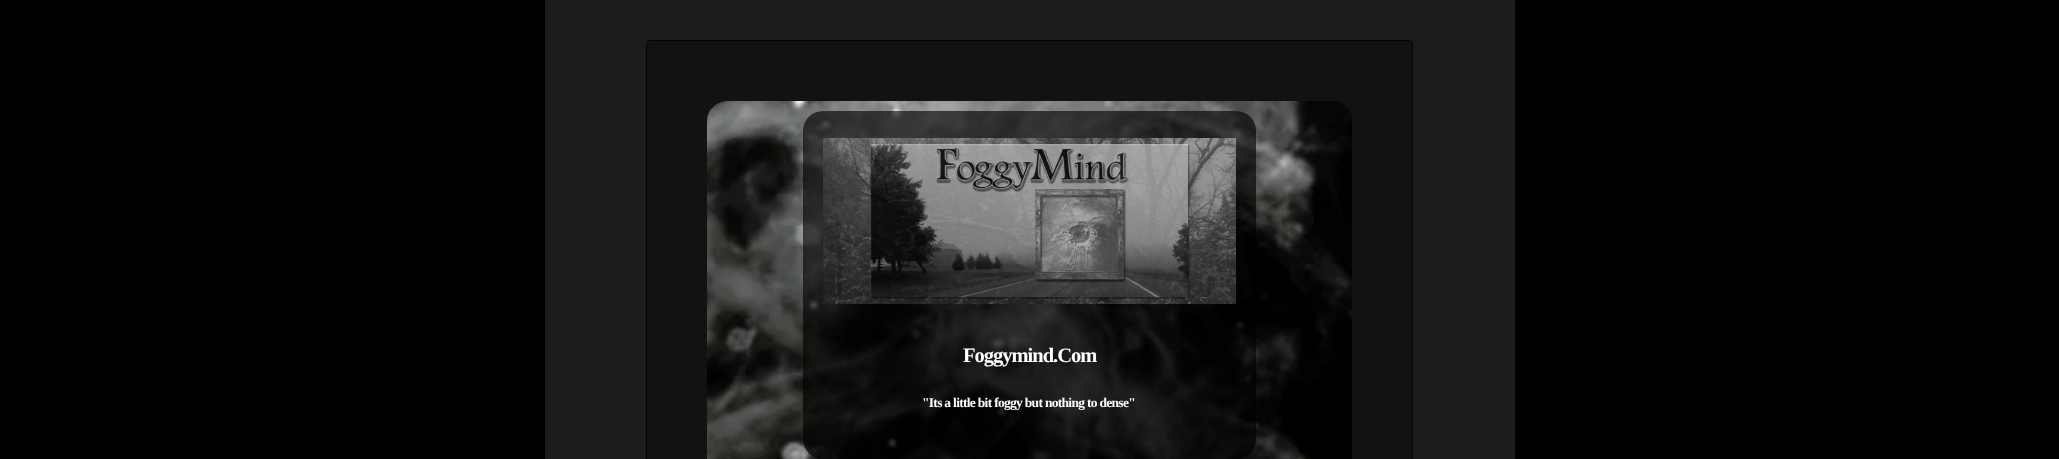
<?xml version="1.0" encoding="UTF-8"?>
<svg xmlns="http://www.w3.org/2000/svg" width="2059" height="459">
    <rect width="100%" height="100%" fill="#000000"/>
    <rect x="545" y="0" width="970" height="459" fill="#1C1C1C"/>
    <rect x="646.5" y="40.5" width="766" height="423" rx="3.5" fill="#121212" stroke="#050505"/>
    <rect x="707" y="101" width="645" height="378" rx="20" fill="#000000"/>
    <image x="707" y="101" width="645" height="358" href="img_01.png"/>
    <rect x="803" y="111" width="453" height="348" rx="20" fill="#000000" fill-opacity="0.63"/>
    <image x="823" y="138" width="413" height="166" href="img_02.png"/>
    <text x="963" y="362" font-family="Liberation Serif" font-size="20.5" font-weight="700" letter-spacing="-1" fill="#FFFFFF">Foggymind.Com</text>
    <text x="922" y="407" font-family="Liberation Serif" font-size="13.5" font-weight="700" letter-spacing="-0.7" fill="#FFFFFF">"Its a little bit foggy but nothing to dense"</text>
</svg>
